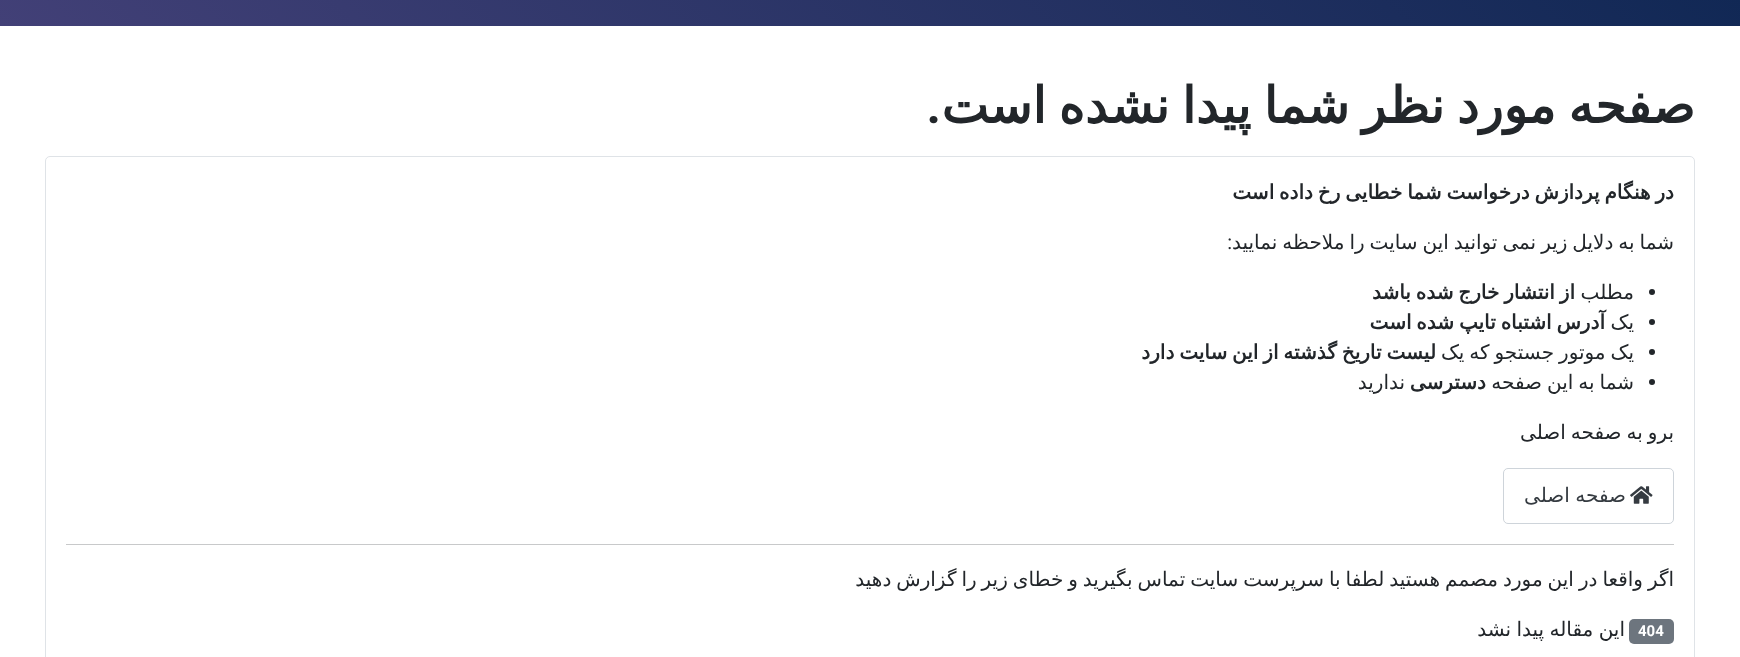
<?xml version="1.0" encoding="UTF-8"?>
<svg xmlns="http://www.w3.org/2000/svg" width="1740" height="657">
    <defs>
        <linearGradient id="g1" gradientUnits="userSpaceOnUse" x1="1313" y1="-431" x2="427" y2="454"><stop offset="0" stop-color="#112855"/><stop offset="1" stop-color="#424077"/></linearGradient>
    </defs>
    <rect width="100%" height="100%" fill="#FFFFFF"/>
    <rect x="0" y="0" width="1740" height="26" fill="url(#g1)"/>
    <text x="1695" y="123" word-spacing="-3.5" font-family="DejaVu Sans" font-size="50" font-weight="700" direction="rtl" fill="#22262A">صفحه مورد نظر شما پیدا نشده است</text>
    <text x="941" y="123" font-family="Roboto" font-size="50" font-weight="700" direction="rtl" fill="#22262A">.</text>
    <rect x="45.5" y="156.5" width="1649" height="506" rx="4.5" fill="none" stroke="#DFE3E7"/>
    <text x="1674" y="199" word-spacing="-1.5" font-family="DejaVu Sans" font-size="20" font-weight="700" direction="rtl" fill="#22262A">در هنگام پردازش درخواست شما خطایی رخ داده است</text>
    <text x="1674" y="249" word-spacing="-1.4" font-family="DejaVu Sans" font-size="20" direction="rtl" fill="#22262A">شما به دلایل زیر نمی توانید این سایت را ملاحظه نمایید</text>
    <text x="1232" y="249" font-family="Roboto" font-size="20" direction="rtl" fill="#22262A">:</text>
    <circle cx="1652" cy="292" r="3" fill="#22262A"/>
    <text x="1634" y="299" font-family="DejaVu Sans" font-size="20" direction="rtl" fill="#22262A">مطلب</text>
    <text x="1575" y="299" word-spacing="-1.5" font-family="DejaVu Sans" font-size="20" font-weight="700" direction="rtl" fill="#22262A">از انتشار خارج شده باشد</text>
    <circle cx="1652" cy="322" r="3" fill="#22262A"/>
    <text x="1634" y="329" font-family="DejaVu Sans" font-size="20" direction="rtl" fill="#22262A">یک</text>
    <text x="1605" y="329" word-spacing="-1.5" font-family="DejaVu Sans" font-size="20" font-weight="700" direction="rtl" fill="#22262A">آدرس اشتباه تایپ شده است</text>
    <circle cx="1652" cy="352" r="3" fill="#22262A"/>
    <text x="1634" y="359" word-spacing="-1.4" font-family="DejaVu Sans" font-size="20" direction="rtl" fill="#22262A">یک موتور جستجو که یک</text>
    <text x="1436" y="359" word-spacing="-1.5" font-family="DejaVu Sans" font-size="20" font-weight="700" direction="rtl" fill="#22262A">لیست تاریخ گذشته از این سایت دارد</text>
    <circle cx="1652" cy="382" r="3" fill="#22262A"/>
    <text x="1634" y="389" word-spacing="-1.4" font-family="DejaVu Sans" font-size="20" direction="rtl" fill="#22262A">شما به این صفحه</text>
    <text x="1486" y="389" font-family="DejaVu Sans" font-size="20" font-weight="700" direction="rtl" fill="#22262A">دسترسی</text>
    <text x="1405" y="389" font-family="DejaVu Sans" font-size="20" direction="rtl" fill="#22262A">ندارید</text>
    <text x="1674" y="439" word-spacing="-1.4" font-family="DejaVu Sans" font-size="20" direction="rtl" fill="#22262A">برو به صفحه اصلی</text>
    <rect x="1503.5" y="468.5" width="170" height="55" rx="4.5" fill="none" stroke="#CED4DA"/>
    <image x="1630" y="486" width="23" height="18" href="img_01.png"/>
    <text x="1626" y="502" word-spacing="-1" font-family="DejaVu Sans" font-size="20" direction="rtl" fill="#353B41">صفحه اصلی</text>
    <rect x="66" y="544" width="1608" height="1" fill="#C8C9CA"/>
    <text x="1674" y="586" word-spacing="-1.4" font-family="DejaVu Sans" font-size="20" direction="rtl" fill="#22262A">اگر واقعا در این مورد مصمم هستید لطفا با سرپرست سایت تماس بگیرید و خطای زیر را گزارش دهید</text>
    <rect x="1629" y="619" width="45" height="25" rx="5" fill="#6D757E"/>
    <text x="1638" y="636" font-family="Roboto" font-size="15" font-weight="700" fill="#FFFFFF">404</text>
    <text x="1625" y="636" word-spacing="-1" font-family="DejaVu Sans" font-size="20" direction="rtl" fill="#22262A">این مقاله پیدا نشد</text>
</svg>
